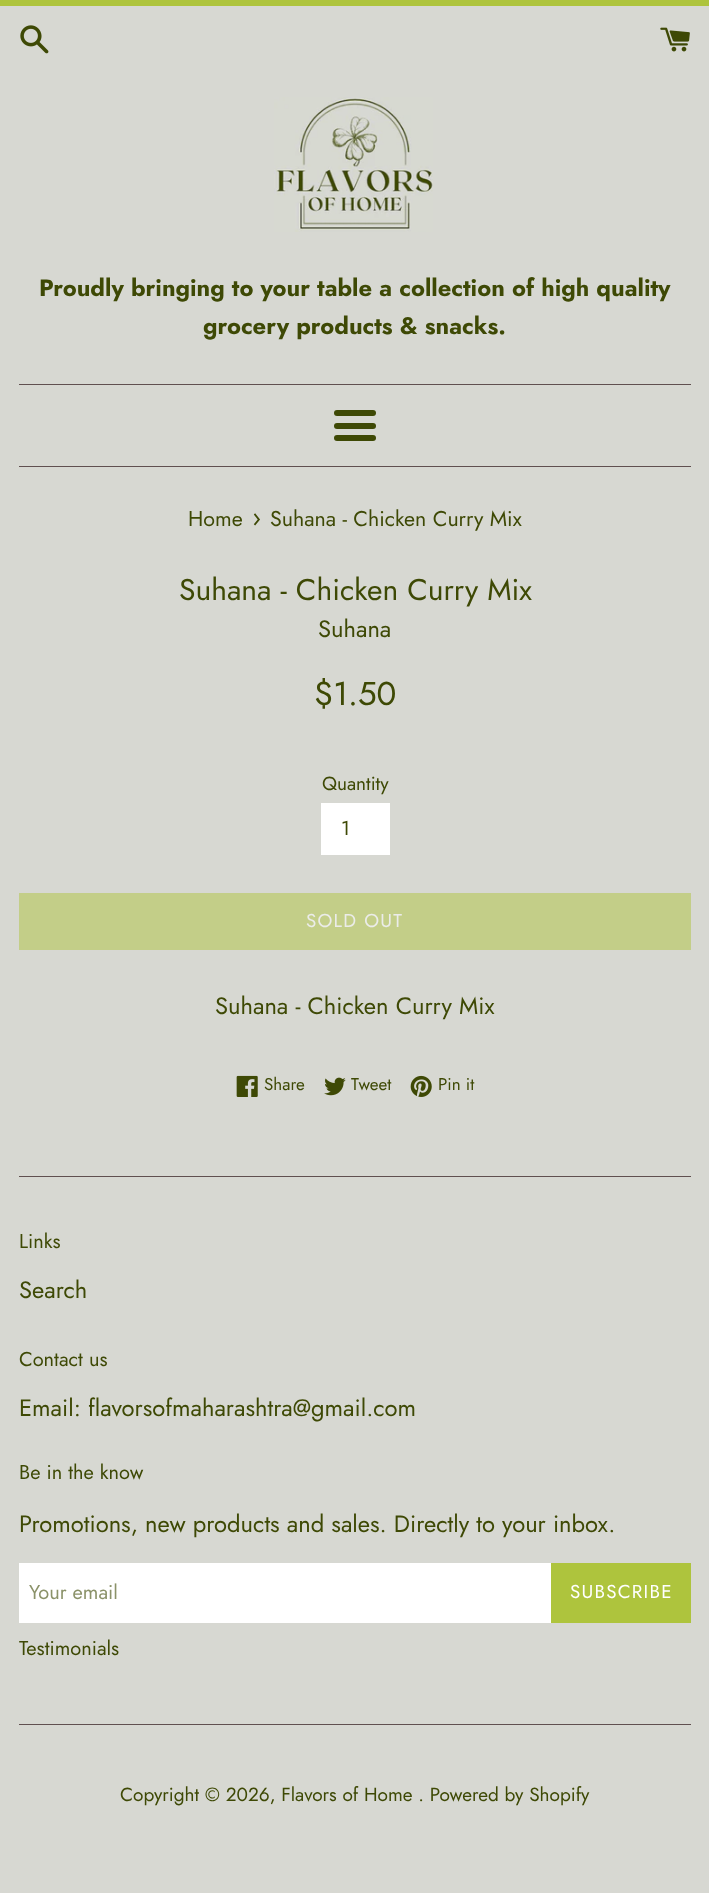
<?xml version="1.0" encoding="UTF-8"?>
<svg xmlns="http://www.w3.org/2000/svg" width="709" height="1893">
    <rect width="100%" height="100%" fill="#D7D8D2"/>
    <rect x="0" y="0" width="709" height="6" fill="#AEC43D"/>
    <image x="20" y="25" width="29" height="29" href="img_01.png"/>
    <image x="660" y="27" width="30" height="25" href="img_02.png"/>
    <image x="274" y="97" width="159" height="135" href="img_03.png"/>
    <text x="39" y="296" font-family="Jost" font-size="23.75" font-weight="700" fill="#3E4905">Proudly bringing to your table a collection of high quality</text>
    <text x="203" y="334" font-family="Jost" font-size="23.75" font-weight="700" fill="#3E4905">grocery products &amp; snacks.</text>
    <rect x="19" y="384" width="672" height="1" fill="#605050"/>
    <rect x="334" y="410" width="42" height="6" rx="3" fill="#3E4905"/>
    <rect x="334" y="423" width="42" height="6" rx="3" fill="#3E4905"/>
    <rect x="334" y="435" width="42" height="6" rx="3" fill="#3E4905"/>
    <rect x="19" y="466" width="672" height="1" fill="#605050"/>
    <text x="188" y="526" font-family="Jost" font-size="21.4" fill="#3E4905">Home</text>
    <text x="252" y="526" font-family="Jost" font-size="26" fill="#3E4905">›</text>
    <text x="270" y="526" font-family="Jost" font-size="21.4" fill="#3E4905">Suhana - Chicken Curry Mix</text>
    <text x="179" y="600" font-family="Jost" font-size="30" fill="#3E4905">Suhana - Chicken Curry Mix</text>
    <text x="318" y="637" font-family="Jost" font-size="23.75" fill="#3E4905">Suhana</text>
    <text x="314" y="705" font-family="Jost" font-size="33" fill="#3E4905">$1.50</text>
    <text x="322" y="790" font-family="Jost" font-size="19" fill="#3E4905">Quantity</text>
    <rect x="321" y="803" width="69" height="52" fill="#FFFFFF"/>
    <text x="341" y="835" font-family="Jost" font-size="20" fill="#3E4905">1</text>
    <rect x="19" y="893" width="672" height="57" fill="#C3CE88"/>
    <text x="306" y="927" font-family="Jost" font-size="18.75" letter-spacing="1.25" fill="#EBECE9">SOLD OUT</text>
    <text x="215" y="1014" font-family="Jost" font-size="23.75" fill="#3E4905">Suhana - Chicken Curry Mix</text>
    <image x="236" y="1075" width="22" height="22" href="img_04.png"/>
    <text x="264" y="1090" font-family="Jost" font-size="17" fill="#3E4905">Share</text>
    <image x="324" y="1077" width="22" height="19" href="img_05.png"/>
    <text x="351" y="1090" font-family="Jost" font-size="17" fill="#3E4905">Tweet</text>
    <image x="410" y="1075" width="22" height="22" href="img_06.png"/>
    <text x="438" y="1090" font-family="Jost" font-size="17" fill="#3E4905">Pin it</text>
    <rect x="19" y="1176" width="672" height="1" fill="#605050"/>
    <text x="19" y="1248" font-family="Jost" font-size="20" fill="#3E4905">Links</text>
    <text x="19" y="1298" font-family="Jost" font-size="23.75" fill="#3E4905">Search</text>
    <text x="19" y="1366" font-family="Jost" font-size="20" fill="#3E4905">Contact us</text>
    <text x="19" y="1416" font-family="Jost" font-size="23.75" fill="#3E4905">Email: flavorsofmaharashtra@gmail.com</text>
    <text x="19" y="1479" font-family="Jost" font-size="20" fill="#3E4905">Be in the know</text>
    <text x="19" y="1532" font-family="Jost" font-size="23.75" fill="#3E4905">Promotions, new products and sales. Directly to your inbox.</text>
    <rect x="19" y="1563" width="532" height="60" fill="#FFFFFF"/>
    <text x="29" y="1599" font-family="Jost" font-size="20" fill="#8B9269">Your email</text>
    <rect x="551" y="1563" width="140" height="60" fill="#AEC43D"/>
    <text x="570" y="1598" font-family="Jost" font-size="18.75" letter-spacing="1.25" fill="#FFFFFF">SUBSCRIBE</text>
    <text x="19" y="1655" font-family="Jost" font-size="20" fill="#3E4905">Testimonials</text>
    <rect x="19" y="1724" width="672" height="1" fill="#605050"/>
    <text x="120" y="1801" font-family="Jost" font-size="19" fill="#3E4905">Copyright © 2026, Flavors of Home . Powered by Shopify</text>
</svg>
